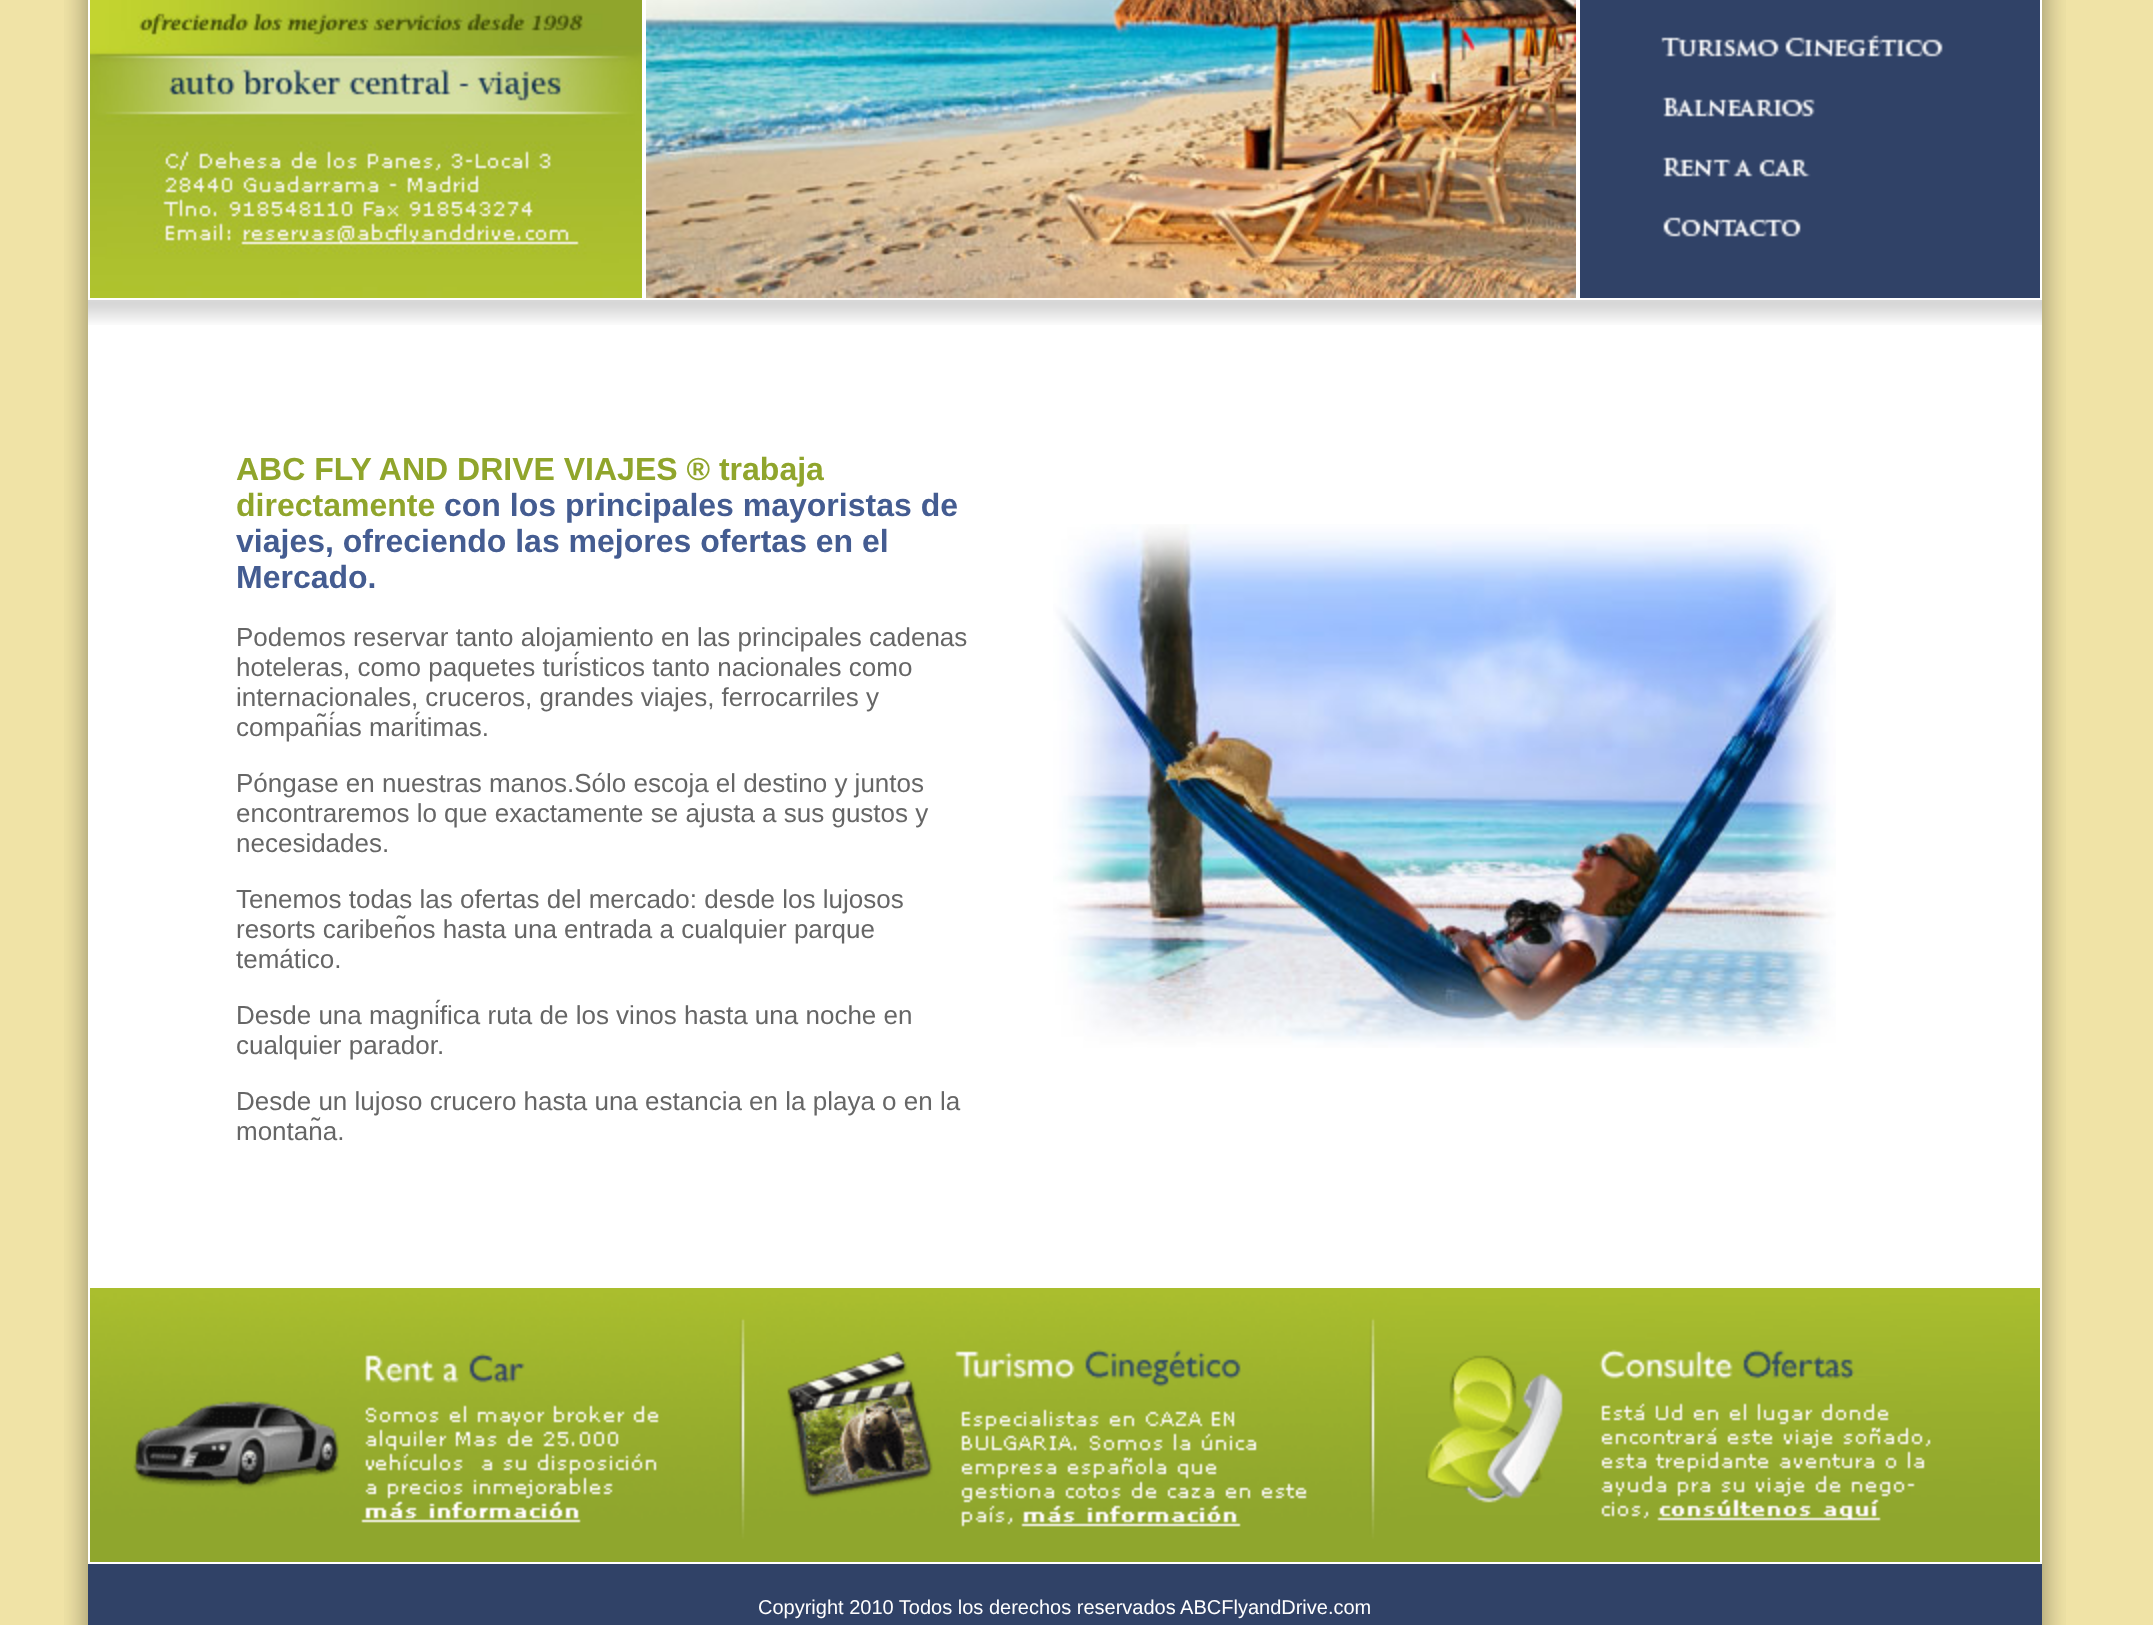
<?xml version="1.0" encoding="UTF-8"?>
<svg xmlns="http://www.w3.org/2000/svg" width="2153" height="1625">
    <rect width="100%" height="100%" fill="#F0E3A6"/>
    <image x="64" y="0" width="24" height="1625" href="img_01.png"/>
    <rect x="88" y="0" width="1954" height="1564" fill="#FFFFFF"/>
    <image x="90" y="0" width="552" height="298" href="img_02.png"/>
    <image x="646" y="0" width="930" height="298" href="img_03.png"/>
    <rect x="1580" y="0" width="460" height="12" fill="#304267"/>
    <image x="1580" y="12" width="460" height="64" href="img_04.png"/>
    <image x="1580" y="76" width="460" height="58" href="img_05.png"/>
    <image x="1580" y="134" width="460" height="58" href="img_06.png"/>
    <image x="1580" y="192" width="460" height="64" href="img_07.png"/>
    <rect x="1580" y="256" width="460" height="42" fill="#304267"/>
    <image x="88" y="300" width="1954" height="25" href="img_08.png"/>
    <text font-family="Liberation Sans" font-size="32" font-weight="700" fill="#90A52C">
        <tspan x="236" y="480">ABC FLY AND DRIVE VIAJES ® trabaja</tspan>
        <tspan x="236" y="516">directamente</tspan>
    </text>
    <text x="444" y="516" font-family="Liberation Sans" font-size="32" font-weight="700" fill="#445C91">con los principales mayoristas de</text>
    <text font-family="Liberation Sans" font-size="32" font-weight="700" fill="#445C91">
        <tspan x="236" y="552">viajes, ofreciendo las mejores ofertas en el</tspan>
        <tspan x="236" y="588">Mercado.</tspan>
    </text>
    <text font-family="Liberation Sans" font-size="26" fill="#666666">
        <tspan x="236" y="646">Podemos reservar tanto alojamiento en las principales cadenas</tspan>
        <tspan x="236" y="676">hoteleras, como paquetes turísticos tanto nacionales como</tspan>
        <tspan x="236" y="706">internacionales, cruceros, grandes viajes, ferrocarriles y</tspan>
        <tspan x="236" y="736">compañías marítimas.</tspan>
    </text>
    <text font-family="Liberation Sans" font-size="26" fill="#666666">
        <tspan x="236" y="792">Póngase en nuestras manos.Sólo escoja el destino y juntos</tspan>
        <tspan x="236" y="822">encontraremos lo que exactamente se ajusta a sus gustos y</tspan>
        <tspan x="236" y="852">necesidades.</tspan>
    </text>
    <text font-family="Liberation Sans" font-size="26" fill="#666666">
        <tspan x="236" y="908">Tenemos todas las ofertas del mercado: desde los lujosos</tspan>
        <tspan x="236" y="938">resorts caribeños hasta una entrada a cualquier parque</tspan>
        <tspan x="236" y="968">temático.</tspan>
    </text>
    <text font-family="Liberation Sans" font-size="26" fill="#666666">
        <tspan x="236" y="1024">Desde una magnífica ruta de los vinos hasta una noche en</tspan>
        <tspan x="236" y="1054">cualquier parador.</tspan>
    </text>
    <text font-family="Liberation Sans" font-size="26" fill="#666666">
        <tspan x="236" y="1110">Desde un lujoso crucero hasta una estancia en la playa o en la</tspan>
        <tspan x="236" y="1140">montaña.</tspan>
    </text>
    <image x="1053" y="524" width="783" height="524" href="img_09.png"/>
    <image x="90" y="1288" width="634" height="274" href="img_10.png"/>
    <image x="724" y="1288" width="42" height="274" href="img_11.png"/>
    <image x="766" y="1288" width="586" height="274" href="img_12.png"/>
    <image x="1352" y="1288" width="48" height="274" href="img_13.png"/>
    <image x="1400" y="1288" width="640" height="274" href="img_14.png"/>
    <rect x="88" y="1564" width="1954" height="61" fill="#304267"/>
    <text x="758" y="1614" font-family="Liberation Sans" font-size="20" fill="#FFFFFF">Copyright 2010 Todos los derechos reservados ABCFlyandDrive.com</text>
    <image x="2042" y="0" width="24" height="1625" href="img_15.png"/>
</svg>
